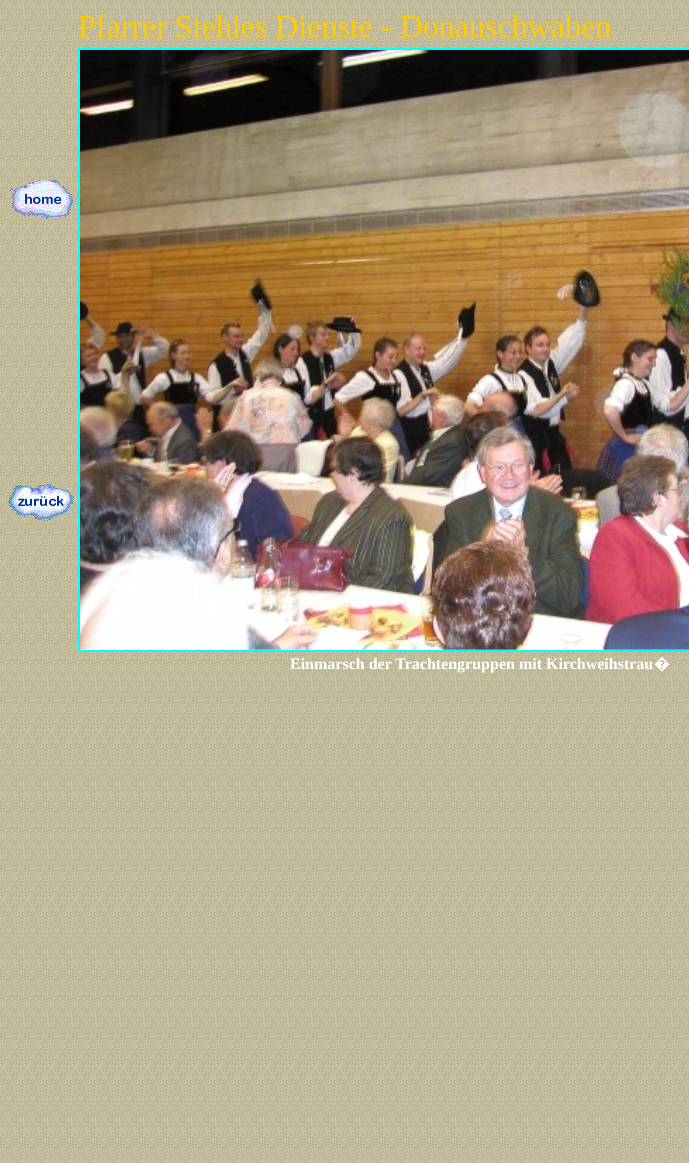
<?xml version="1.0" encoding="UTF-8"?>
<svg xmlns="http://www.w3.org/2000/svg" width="689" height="1163">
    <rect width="100%" height="100%" fill="#FFFFFF"/>
    <image x="0" y="0" width="689" height="1163" href="img_01.png"/>
    <text x="78" y="37" font-family="Liberation Serif" font-size="32" fill="#FFCC00">Pfarrer Stehles Dienste - Donauschwaben</text>
    <image x="10" y="180" width="63" height="39" href="img_02.png"/>
    <rect x="79" y="49" width="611" height="602" fill="none" stroke="#00FFFF" stroke-width="2"/>
    <image x="80" y="50" width="609" height="600" href="img_03.png"/>
    <image x="8" y="484" width="66" height="37" href="img_04.png"/>
    <text x="290" y="669" font-family="Liberation Serif" font-size="16" font-weight="700" fill="#FFFFFF">Einmarsch der Trachtengruppen mit Kirchweihstrau</text>
    <text x="654" y="669" font-family="Noto Sans" font-size="16" font-weight="700" fill="#FFFFFF">�</text>
</svg>
